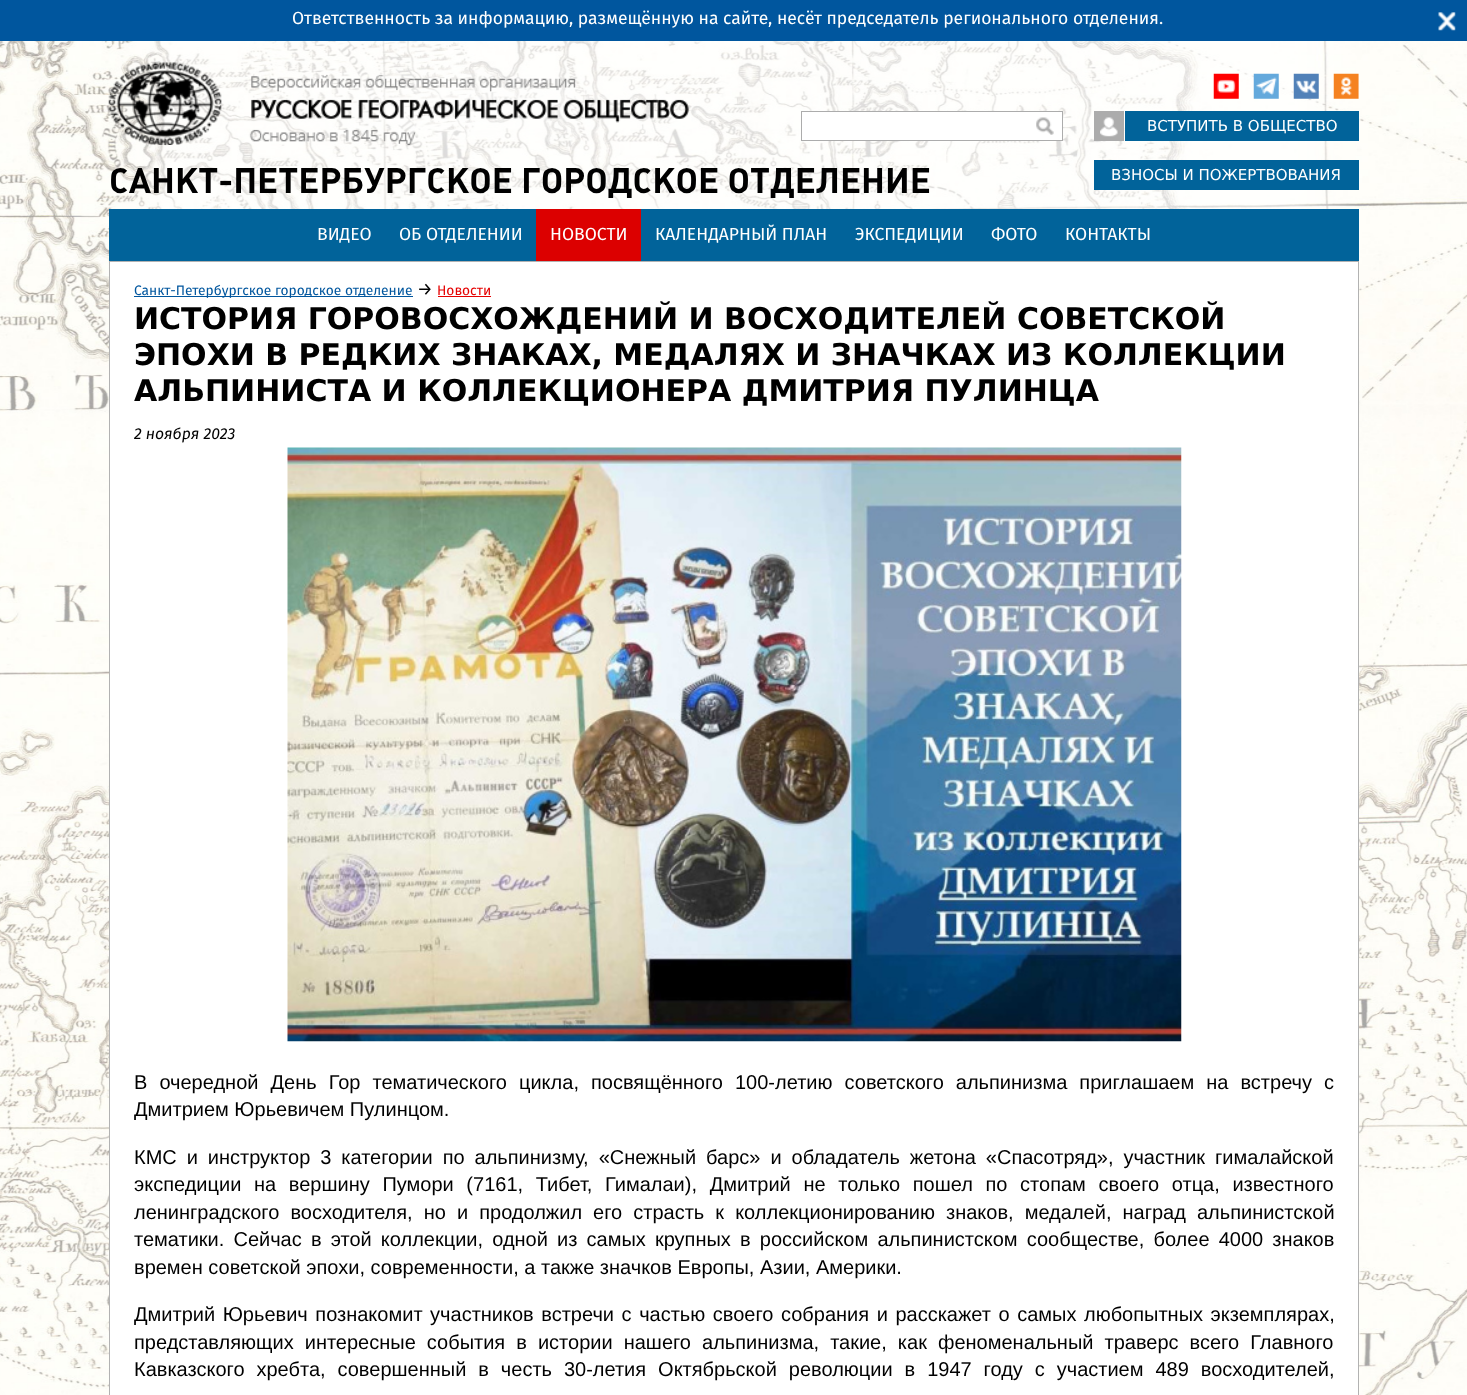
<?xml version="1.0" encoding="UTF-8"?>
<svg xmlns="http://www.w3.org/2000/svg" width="1467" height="1395">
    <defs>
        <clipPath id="clip1"><rect x="109" y="163" width="822" height="35"/></clipPath>
    </defs>
    <rect width="100%" height="100%" fill="#FFFFFF"/>
    <image x="0" y="41" width="1467" height="1354" href="img_01.png"/>
    <rect x="0" y="0" width="1467" height="41" fill="#00569E"/>
    <text x="292" y="24" font-family="Fira Sans" font-size="17.5" fill="#FFFFFF">Ответственность за информацию, размещённую на сайте, несёт председатель регионального отделения.</text>
    <image x="1438" y="12" width="18" height="19" href="img_02.png"/>
    <image x="108" y="62" width="581" height="83" href="img_03.png"/>
    <image x="1213" y="73" width="26" height="26" href="img_04.png"/>
    <image x="1253" y="73" width="26" height="26" href="img_05.png"/>
    <image x="1293" y="73" width="26" height="26" href="img_06.png"/>
    <image x="1333" y="73" width="26" height="26" href="img_07.png"/>
    <rect x="801.5" y="111.5" width="261" height="29" fill="#FFFFFF" stroke="#ACACAC"/>
    <image x="1036" y="117" width="18" height="18" href="img_08.png"/>
    <rect x="1094" y="111" width="30" height="30" fill="#ACACAC"/>
    <image x="1100" y="117" width="18" height="20" href="img_09.png"/>
    <rect x="1125" y="111" width="234" height="30" fill="#01639A"/>
    <text x="1147" y="131" font-family="DejaVu Sans" font-size="15" fill="#FFFFFF">ВСТУПИТЬ В ОБЩЕСТВО</text>
    <rect x="1094" y="160" width="265" height="30" fill="#01639A"/>
    <text x="1111" y="180" font-family="DejaVu Sans" font-size="15" fill="#FFFFFF">ВЗНОСЫ И ПОЖЕРТВОВАНИЯ</text>
    <rect x="109" y="209" width="1250" height="52" fill="#01639A"/>
    <text x="317" y="240" font-family="Fira Sans" font-size="17.5" fill="#FFFFFF">ВИДЕО</text>
    <text x="399" y="240" font-family="Fira Sans" font-size="17.5" fill="#FFFFFF">ОБ ОТДЕЛЕНИИ</text>
    <rect x="536" y="209" width="105" height="52" fill="#DC0000"/>
    <text x="550" y="240" font-family="Fira Sans" font-size="17.5" fill="#FFFFFF">НОВОСТИ</text>
    <text x="655" y="240" font-family="Fira Sans" font-size="17.5" fill="#FFFFFF">КАЛЕНДАРНЫЙ ПЛАН</text>
    <text x="855" y="240" font-family="Fira Sans" font-size="17.5" fill="#FFFFFF">ЭКСПЕДИЦИИ</text>
    <text x="991" y="240" font-family="Fira Sans" font-size="17.5" fill="#FFFFFF">ФОТО</text>
    <text x="1065" y="240" font-family="Fira Sans" font-size="17.5" fill="#FFFFFF">КОНТАКТЫ</text>
    <g clip-path="url(#clip1)">
        <text x="109" y="193" font-family="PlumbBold" font-size="35" font-weight="700" fill="#000000">САНКТ-ПЕТЕРБУРГСКОЕ ГОРОДСКОЕ ОТДЕЛЕНИЕ</text>
    </g>
    <rect x="109.5" y="261.5" width="1249" height="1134" fill="#FFFFFF" stroke="#B2B2B2"/>
    <rect x="134" y="296" width="279" height="1" fill="#00569E"/>
    <text x="134" y="295" font-family="Fira Sans" font-size="13.75" fill="#00569E">Санкт-Петербургское городское отделение</text>
    <text x="417" y="295" font-family="Fira Sans" font-size="17.5" fill="#000000">→</text>
    <text x="437" y="295" font-family="Fira Sans" font-size="13.75" fill="#E50000">Новости</text>
    <rect x="438" y="296" width="53" height="1" fill="#E50000"/>
    <text font-family="DejaVu Sans" font-size="30" font-weight="700" fill="#000000">
        <tspan x="134" y="329">ИСТОРИЯ ГОРОВОСХОЖДЕНИЙ И ВОСХОДИТЕЛЕЙ СОВЕТСКОЙ</tspan>
        <tspan x="134" y="365">ЭПОХИ В РЕДКИХ ЗНАКАХ, МЕДАЛЯХ И ЗНАЧКАХ ИЗ КОЛЛЕКЦИИ</tspan>
        <tspan x="134" y="401">АЛЬПИНИСТА И КОЛЛЕКЦИОНЕРА ДМИТРИЯ ПУЛИНЦА</tspan>
    </text>
    <text x="134" y="439" font-family="Fira Sans" font-size="15.75" font-style="italic" fill="#000000">2 ноября 2023</text>
    <image x="287" y="447" width="895" height="595" href="img_10.png"/>
    <text font-family="Liberation Sans" font-size="20" fill="#000000">
        <tspan x="134" y="1089" word-spacing="6.5">В очередной День Гор тематического цикла, посвящённого 100-летию советского альпинизма приглашаем на встречу с</tspan>
        <tspan x="134" y="1116">Дмитрием Юрьевичем Пулинцом.</tspan>
    </text>
    <text font-family="Liberation Sans" font-size="20" fill="#000000">
        <tspan x="134" y="1164" word-spacing="4.4">КМС и инструктор 3 категории по альпинизму, «Снежный барс» и обладатель жетона «Спасотряд», участник гималайской</tspan>
        <tspan x="134" y="1191" word-spacing="7.1">экспедиции на вершину Пумори (7161, Тибет, Гималаи), Дмитрий не только пошел по стопам своего отца, известного</tspan>
        <tspan x="134" y="1219" word-spacing="5.5">ленинградского восходителя, но и продолжил его страсть к коллекционированию знаков, медалей, наград альпинистской</tspan>
        <tspan x="134" y="1246" word-spacing="3.6">тематики. Сейчас в этой коллекции, одной из самых крупных в российском альпинистском сообществе, более 4000 знаков</tspan>
        <tspan x="134" y="1274">времен советской эпохи, современности, а также значков Европы, Азии, Америки.</tspan>
    </text>
    <text font-family="Liberation Sans" font-size="20" fill="#000000">
        <tspan x="134" y="1321" word-spacing="2">Дмитрий Юрьевич познакомит участников встречи с частью своего собрания и расскажет о самых любопытных экземплярах,</tspan>
        <tspan x="134" y="1349" word-spacing="5.5">представляющих интересные события в истории нашего альпинизма, такие, как феноменальный траверс всего Главного</tspan>
        <tspan x="134" y="1376" word-spacing="6.4">Кавказского хребта, совершенный в честь 30-летия Октябрьской революции в 1947 году с участием 489 восходителей,</tspan>
    </text>
</svg>
